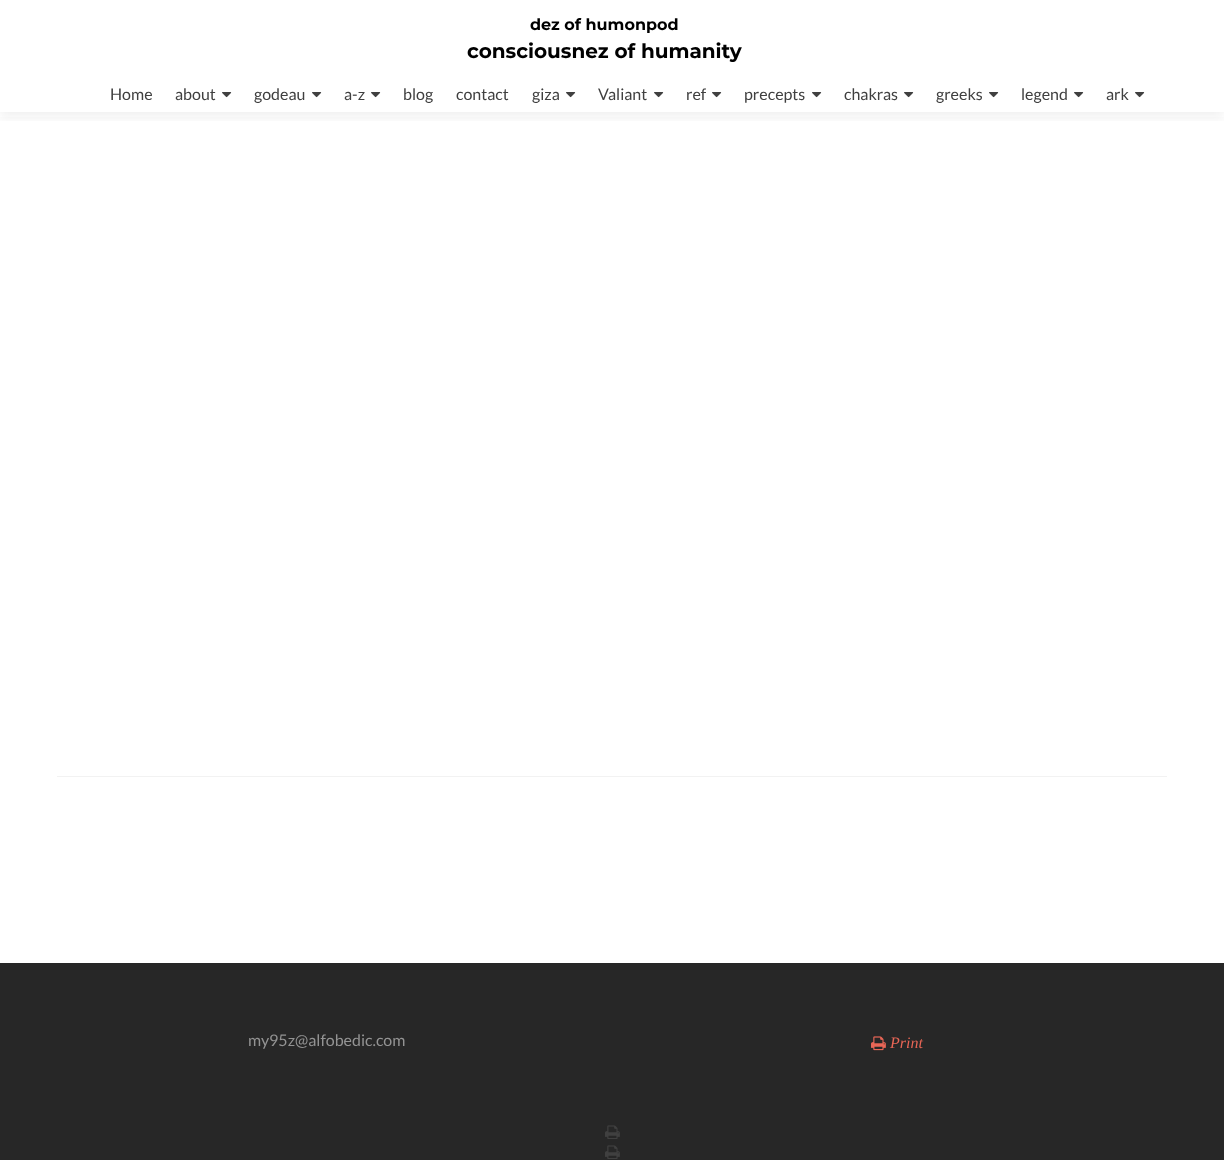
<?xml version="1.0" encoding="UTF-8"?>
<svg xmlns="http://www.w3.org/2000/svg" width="1224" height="1160">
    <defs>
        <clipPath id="clip1"><rect x="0" y="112" width="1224" height="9"/></clipPath>
        <filter id="blur1" x="-50%" y="-200%" width="200%" height="500%"><feGaussianBlur stdDeviation="5.5"/></filter>
    </defs>
    <rect width="100%" height="100%" fill="#FFFFFF"/>
    <g clip-path="url(#clip1)">
        <rect x="0" y="5" width="1224" height="112" fill="#323232" fill-opacity="0.08" filter="url(#blur1)"/>
    </g>
    <text x="530" y="30" font-family="Montserrat" font-size="16" font-weight="700" fill="#000000">dez of humonpod</text>
    <text x="467" y="58" font-family="Montserrat" font-size="20" font-weight="700" fill="#000000">consciousnez of humanity</text>
    <text x="110" y="100" font-family="Lato" font-size="16" fill="#404040">Home</text>
    <text x="175" y="100" font-family="Lato" font-size="16" fill="#404040">about</text>
    <image x="222" y="92" width="10" height="6" href="img_01.png"/>
    <text x="254" y="100" font-family="Lato" font-size="16" fill="#404040">godeau</text>
    <image x="312" y="92" width="10" height="6" href="img_01.png"/>
    <text x="344" y="100" font-family="Lato" font-size="16" fill="#404040">a-z</text>
    <image x="371" y="92" width="10" height="6" href="img_01.png"/>
    <text x="403" y="100" font-family="Lato" font-size="16" fill="#404040">blog</text>
    <text x="456" y="100" font-family="Lato" font-size="16" fill="#404040">contact</text>
    <text x="532" y="100" font-family="Lato" font-size="16" fill="#404040">giza</text>
    <image x="566" y="92" width="10" height="6" href="img_01.png"/>
    <text x="598" y="100" font-family="Lato" font-size="16" fill="#404040">Valiant</text>
    <image x="654" y="92" width="10" height="6" href="img_01.png"/>
    <text x="686" y="100" font-family="Lato" font-size="16" fill="#404040">ref</text>
    <image x="712" y="92" width="10" height="6" href="img_01.png"/>
    <text x="744" y="100" font-family="Lato" font-size="16" fill="#404040">precepts</text>
    <image x="812" y="92" width="10" height="6" href="img_01.png"/>
    <text x="844" y="100" font-family="Lato" font-size="16" fill="#404040">chakras</text>
    <image x="904" y="92" width="10" height="6" href="img_01.png"/>
    <text x="936" y="100" font-family="Lato" font-size="16" fill="#404040">greeks</text>
    <image x="989" y="92" width="10" height="6" href="img_01.png"/>
    <text x="1021" y="100" font-family="Lato" font-size="16" fill="#404040">legend</text>
    <image x="1074" y="92" width="10" height="6" href="img_01.png"/>
    <text x="1106" y="100" font-family="Lato" font-size="16" fill="#404040">ark</text>
    <image x="1135" y="92" width="10" height="6" href="img_01.png"/>
    <rect x="57" y="776" width="1110" height="1" fill="#F2F2F2"/>
    <rect x="0" y="963" width="1224" height="197" fill="#272727"/>
    <text x="248" y="1046" font-family="Lato" font-size="16" fill="#939393">my95z@alfobedic.com</text>
    <image x="871" y="1036" width="15" height="15" href="img_02.png"/>
    <text x="890" y="1048" font-family="Liberation Serif" font-size="16" font-style="italic" fill="#E96656">Print</text>
    <image x="605" y="1125" width="15" height="14" href="img_03.png"/>
    <image x="605" y="1145" width="15" height="14" href="img_03.png"/>
</svg>
